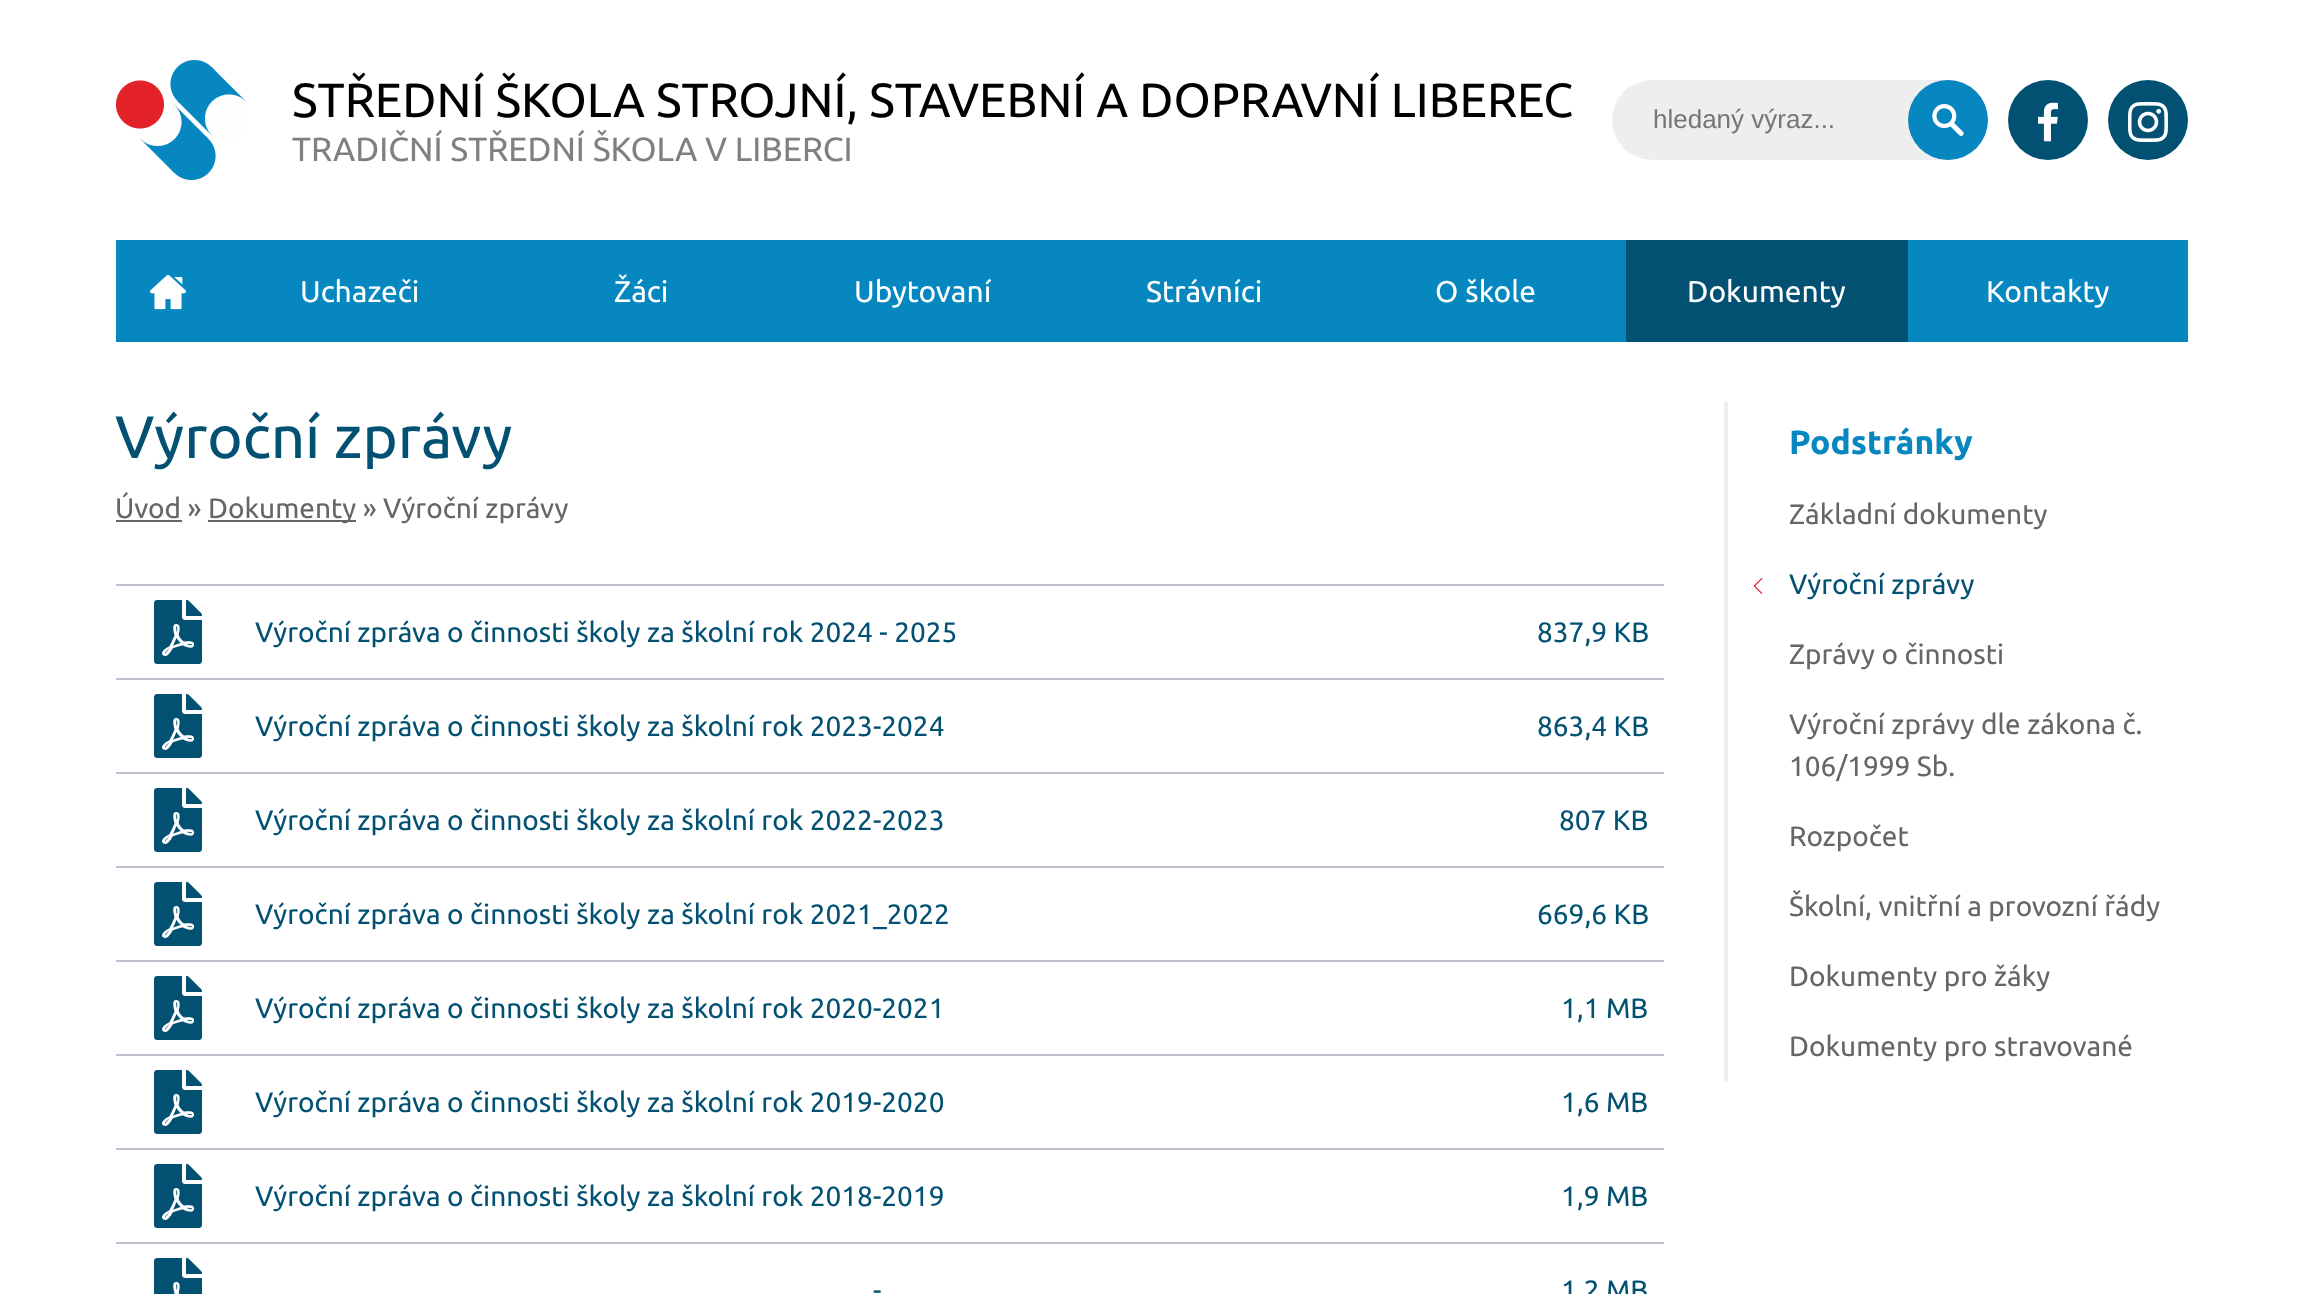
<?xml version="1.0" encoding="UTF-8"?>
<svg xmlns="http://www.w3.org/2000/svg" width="2304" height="1294">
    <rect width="100%" height="100%" fill="#FFFFFF"/>
    <image x="116" y="60" width="130" height="120" href="img_01.png"/>
    <text x="292" y="117" font-family="Ubuntu" font-size="48" fill="#000000">STŘEDNÍ ŠKOLA STROJNÍ, STAVEBNÍ A DOPRAVNÍ LIBEREC</text>
    <text x="292" y="161" font-family="Ubuntu" font-size="33.6" fill="#808080">TRADIČNÍ STŘEDNÍ ŠKOLA V LIBERCI</text>
    <rect x="1612" y="80" width="376" height="80" rx="40" fill="#EEEEEE"/>
    <text x="1653" y="128" font-family="Liberation Sans" font-size="26" fill="#757575">hledaný výraz...</text>
    <circle cx="1948" cy="120" r="40" fill="#0687C0"/>
    <image x="1932" y="104" width="32" height="32" href="img_02.png"/>
    <circle cx="2048" cy="120" r="40" fill="#025173"/>
    <image x="2038" y="102" width="20" height="40" href="img_03.png"/>
    <circle cx="2148" cy="120" r="40" fill="#025173"/>
    <image x="2128" y="102" width="40" height="40" href="img_04.png"/>
    <rect x="116" y="240" width="2072" height="102" fill="#0687C0"/>
    <image x="150" y="274" width="36" height="36" href="img_05.png"/>
    <text x="300" y="302" font-family="Ubuntu" font-size="30" fill="#FFFFFF">Uchazeči</text>
    <text x="614" y="302" font-family="Ubuntu" font-size="30" fill="#FFFFFF">Žáci</text>
    <text x="854" y="302" font-family="Ubuntu" font-size="30" fill="#FFFFFF">Ubytovaní</text>
    <text x="1146" y="302" font-family="Ubuntu" font-size="30" fill="#FFFFFF">Strávníci</text>
    <text x="1435" y="302" font-family="Ubuntu" font-size="30" fill="#FFFFFF">O škole</text>
    <rect x="1626" y="240" width="282" height="102" fill="#025173"/>
    <text x="1687" y="302" font-family="Ubuntu" font-size="30" fill="#FFFFFF">Dokumenty</text>
    <text x="1986" y="302" font-family="Ubuntu" font-size="30" fill="#FFFFFF">Kontakty</text>
    <text x="115" y="458" font-family="Ubuntu" font-size="60" fill="#025173">Výroční zprávy</text>
    <text x="115" y="518" font-family="Ubuntu" font-size="28" fill="#666666">Úvod »</text>
    <rect x="116" y="520" width="66" height="2" fill="#666666"/>
    <rect x="208" y="520" width="148" height="2" fill="#666666"/>
    <text x="208" y="518" font-family="Ubuntu" font-size="28" fill="#666666">Dokumenty » Výroční zprávy</text>
    <rect x="116" y="584" width="1548" height="2" fill="#BBC2CD"/>
    <rect x="116" y="678" width="1548" height="2" fill="#BBC2CD"/>
    <image x="154" y="600" width="48" height="64" href="img_06.png"/>
    <text x="255" y="642" font-family="Ubuntu" font-size="28" fill="#025173">Výroční zpráva o činnosti školy za školní rok 2024 - 2025</text>
    <text x="1537" y="642" font-family="Ubuntu" font-size="28" fill="#025173">837,9 KB</text>
    <rect x="116" y="772" width="1548" height="2" fill="#BBC2CD"/>
    <image x="154" y="694" width="48" height="64" href="img_06.png"/>
    <text x="255" y="736" font-family="Ubuntu" font-size="28" fill="#025173">Výroční zpráva o činnosti školy za školní rok 2023-2024</text>
    <text x="1537" y="736" font-family="Ubuntu" font-size="28" fill="#025173">863,4 KB</text>
    <rect x="116" y="866" width="1548" height="2" fill="#BBC2CD"/>
    <image x="154" y="788" width="48" height="64" href="img_06.png"/>
    <text x="255" y="830" font-family="Ubuntu" font-size="28" fill="#025173">Výroční zpráva o činnosti školy za školní rok 2022-2023</text>
    <text x="1559" y="830" font-family="Ubuntu" font-size="28" fill="#025173">807 KB</text>
    <rect x="116" y="960" width="1548" height="2" fill="#BBC2CD"/>
    <image x="154" y="882" width="48" height="64" href="img_06.png"/>
    <text x="255" y="924" font-family="Ubuntu" font-size="28" fill="#025173">Výroční zpráva o činnosti školy za školní rok 2021_2022</text>
    <text x="1537" y="924" font-family="Ubuntu" font-size="28" fill="#025173">669,6 KB</text>
    <rect x="116" y="1054" width="1548" height="2" fill="#BBC2CD"/>
    <image x="154" y="976" width="48" height="64" href="img_06.png"/>
    <text x="255" y="1018" font-family="Ubuntu" font-size="28" fill="#025173">Výroční zpráva o činnosti školy za školní rok 2020-2021</text>
    <text x="1561" y="1018" font-family="Ubuntu" font-size="28" fill="#025173">1,1 MB</text>
    <rect x="116" y="1148" width="1548" height="2" fill="#BBC2CD"/>
    <image x="154" y="1070" width="48" height="64" href="img_06.png"/>
    <text x="255" y="1112" font-family="Ubuntu" font-size="28" fill="#025173">Výroční zpráva o činnosti školy za školní rok 2019-2020</text>
    <text x="1561" y="1112" font-family="Ubuntu" font-size="28" fill="#025173">1,6 MB</text>
    <rect x="116" y="1242" width="1548" height="2" fill="#BBC2CD"/>
    <image x="154" y="1164" width="48" height="64" href="img_06.png"/>
    <text x="255" y="1206" font-family="Ubuntu" font-size="28" fill="#025173">Výroční zpráva o činnosti školy za školní rok 2018-2019</text>
    <text x="1561" y="1206" font-family="Ubuntu" font-size="28" fill="#025173">1,9 MB</text>
    <image x="154" y="1258" width="48" height="36" href="img_07.png"/>
    <text x="873" y="1300" font-family="Ubuntu" font-size="28" fill="#025173">-</text>
    <text x="1561" y="1300" font-family="Ubuntu" font-size="28" fill="#025173">1,2 MB</text>
    <rect x="1724" y="402" width="4" height="680" fill="#EEEEEE"/>
    <text x="1789" y="454" font-family="Ubuntu" font-size="33.6" font-weight="700" fill="#0687C0">Podstránky</text>
    <text x="1789" y="524" font-family="Ubuntu" font-size="28" fill="#666666">Základní dokumenty</text>
    <image x="1753" y="578" width="10" height="16" href="img_08.png"/>
    <text x="1789" y="594" font-family="Ubuntu" font-size="28" fill="#025173">Výroční zprávy</text>
    <text x="1789" y="664" font-family="Ubuntu" font-size="28" fill="#666666">Zprávy o činnosti</text>
    <text font-family="Ubuntu" font-size="28" fill="#666666">
        <tspan x="1789" y="734">Výroční zprávy dle zákona č.</tspan>
        <tspan x="1789" y="776">106/1999 Sb.</tspan>
    </text>
    <text x="1789" y="846" font-family="Ubuntu" font-size="28" fill="#666666">Rozpočet</text>
    <text x="1789" y="916" font-family="Ubuntu" font-size="28" fill="#666666">Školní, vnitřní a provozní řády</text>
    <text x="1789" y="986" font-family="Ubuntu" font-size="28" fill="#666666">Dokumenty pro žáky</text>
    <text x="1789" y="1056" font-family="Ubuntu" font-size="28" fill="#666666">Dokumenty pro stravované</text>
</svg>
